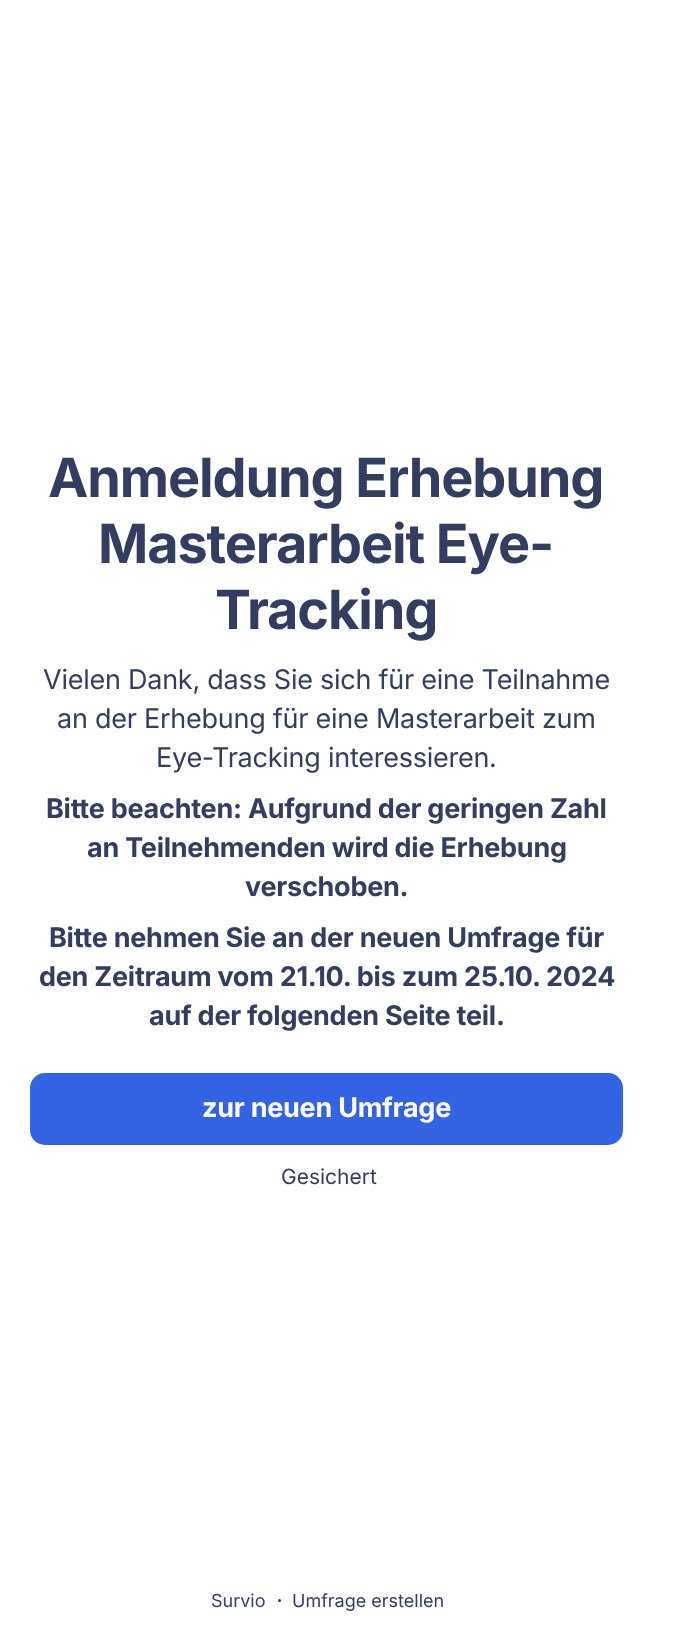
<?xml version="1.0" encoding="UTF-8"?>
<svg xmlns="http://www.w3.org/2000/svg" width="675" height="1636">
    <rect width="100%" height="100%" fill="#FFFFFF"/>
    <text x="48" y="497" font-family="Inter" font-size="54" font-weight="700" letter-spacing="-1.1" fill="#333D60">Anmeldung Erhebung</text>
    <text x="98" y="563" font-family="Inter" font-size="54" font-weight="700" letter-spacing="-1.1" fill="#333D60">Masterarbeit Eye-</text>
    <text x="215" y="629" font-family="Inter" font-size="54" font-weight="700" letter-spacing="-1.1" fill="#333D60">Tracking</text>
    <text x="43" y="689" font-family="Inter" font-size="27" letter-spacing="-0.25" fill="#333D60">Vielen Dank, dass Sie sich für eine Teilnahme</text>
    <text x="57" y="728" font-family="Inter" font-size="27" letter-spacing="-0.25" fill="#333D60">an der Erhebung für eine Masterarbeit zum</text>
    <text x="156" y="767" font-family="Inter" font-size="27" letter-spacing="-0.25" fill="#333D60">Eye-Tracking interessieren.</text>
    <text x="46" y="818" font-family="Inter" font-size="27" font-weight="700" letter-spacing="-0.25" fill="#333D60">Bitte beachten: Aufgrund der geringen Zahl</text>
    <text x="87" y="857" font-family="Inter" font-size="27" font-weight="700" letter-spacing="-0.25" fill="#333D60">an Teilnehmenden wird die Erhebung</text>
    <text x="245" y="896" font-family="Inter" font-size="27" font-weight="700" letter-spacing="-0.25" fill="#333D60">verschoben.</text>
    <text x="49" y="947" font-family="Inter" font-size="27" font-weight="700" letter-spacing="-0.25" fill="#333D60">Bitte nehmen Sie an der neuen Umfrage für</text>
    <text x="39" y="986" font-family="Inter" font-size="27" font-weight="700" letter-spacing="-0.25" fill="#333D60">den Zeitraum vom 21.10. bis zum 25.10. 2024</text>
    <text x="149" y="1025" font-family="Inter" font-size="27" font-weight="700" letter-spacing="-0.25" fill="#333D60">auf der folgenden Seite teil.</text>
    <rect x="30" y="1073" width="593" height="72" rx="15" fill="#3363E2"/>
    <text x="202" y="1117" font-family="Inter" font-size="27" font-weight="700" letter-spacing="-0.25" fill="#FFFFFF">zur neuen Umfrage</text>
    <text x="281" y="1184" font-family="Inter" font-size="21" fill="#333D60">Gesichert</text>
    <text x="211" y="1607" font-family="Inter" font-size="18" fill="#333D60">Survio</text>
    <circle cx="279.5" cy="1600.5" r="1.5" fill="#333D60"/>
    <text x="292" y="1607" font-family="Inter" font-size="18" fill="#333D60">Umfrage erstellen</text>
</svg>
